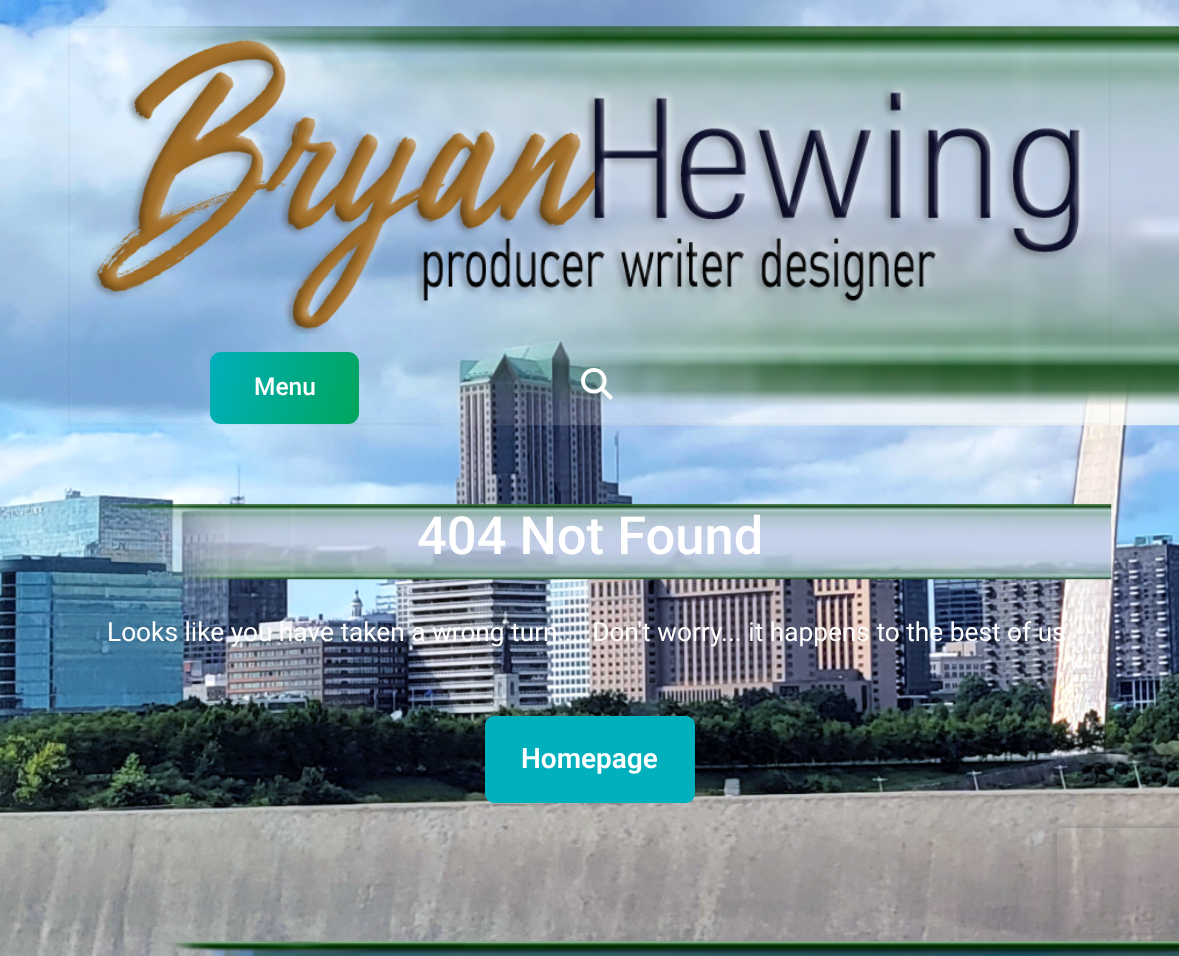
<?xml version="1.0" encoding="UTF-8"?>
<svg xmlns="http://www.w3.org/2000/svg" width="1179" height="956">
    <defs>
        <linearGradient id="g1" gradientUnits="userSpaceOnUse" x1="206" y1="367" x2="363" y2="409"><stop offset="0" stop-color="#00B0BC"/><stop offset="1" stop-color="#00A55B"/></linearGradient>
        <clipPath id="clip1"><path d="M 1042 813 H 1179 V 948 H 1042 Z M 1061 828 H 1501 C 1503 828 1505 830 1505 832 V 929 C 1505 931 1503 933 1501 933 H 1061 C 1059 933 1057 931 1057 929 V 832 C 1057 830 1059 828 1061 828 Z" clip-rule="evenodd"/></clipPath>
        <filter id="blur1" x="-50%" y="-200%" width="200%" height="500%"><feGaussianBlur stdDeviation="4.5"/></filter>
    </defs>
    <rect width="100%" height="100%" fill="#FFFFFF"/>
    <image x="0" y="0" width="1179" height="956" href="img_01.png"/>
    <image x="116" y="26" width="1063" height="400" href="img_02.png"/>
    <rect x="69" y="27" width="1041" height="397" fill="none" stroke="#686868" stroke-opacity="0.05" stroke-width="2"/>
    <image x="89" y="33" width="998" height="302" href="img_03.png"/>
    <rect x="210" y="352" width="149" height="72" rx="11" fill="url(#g1)"/>
    <text x="254" y="395" font-family="Roboto" font-size="24.5" font-weight="500" fill="#FFFFFF">Menu</text>
    <image x="581" y="367" width="32" height="33" href="img_04.png"/>
    <image x="94" y="504" width="1018" height="76" href="img_05.png"/>
    <text x="417" y="554" font-family="Roboto" font-size="52.5" font-weight="500" fill="#FFFFFF">404 Not Found</text>
    <text x="107" y="641" font-family="Roboto" font-size="26.25" fill="#FFFFFF">Looks like you have taken a wrong turn.....Don't worry... it happens to the best of us.</text>
    <rect x="485" y="716" width="210" height="87" rx="9" fill="#00B0BC"/>
    <text x="521" y="768" font-family="Roboto" font-size="28" font-weight="600" fill="#FFFFFF">Homepage</text>
    <image x="165" y="941" width="1014" height="15" href="img_06.png"/>
    <image x="188" y="941" width="991" height="15" href="img_07.png"/>
    <g clip-path="url(#clip1)">
        <rect x="1057" y="828" width="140" height="105" rx="4" fill="#808080" filter="url(#blur1)"/>
    </g>
</svg>
